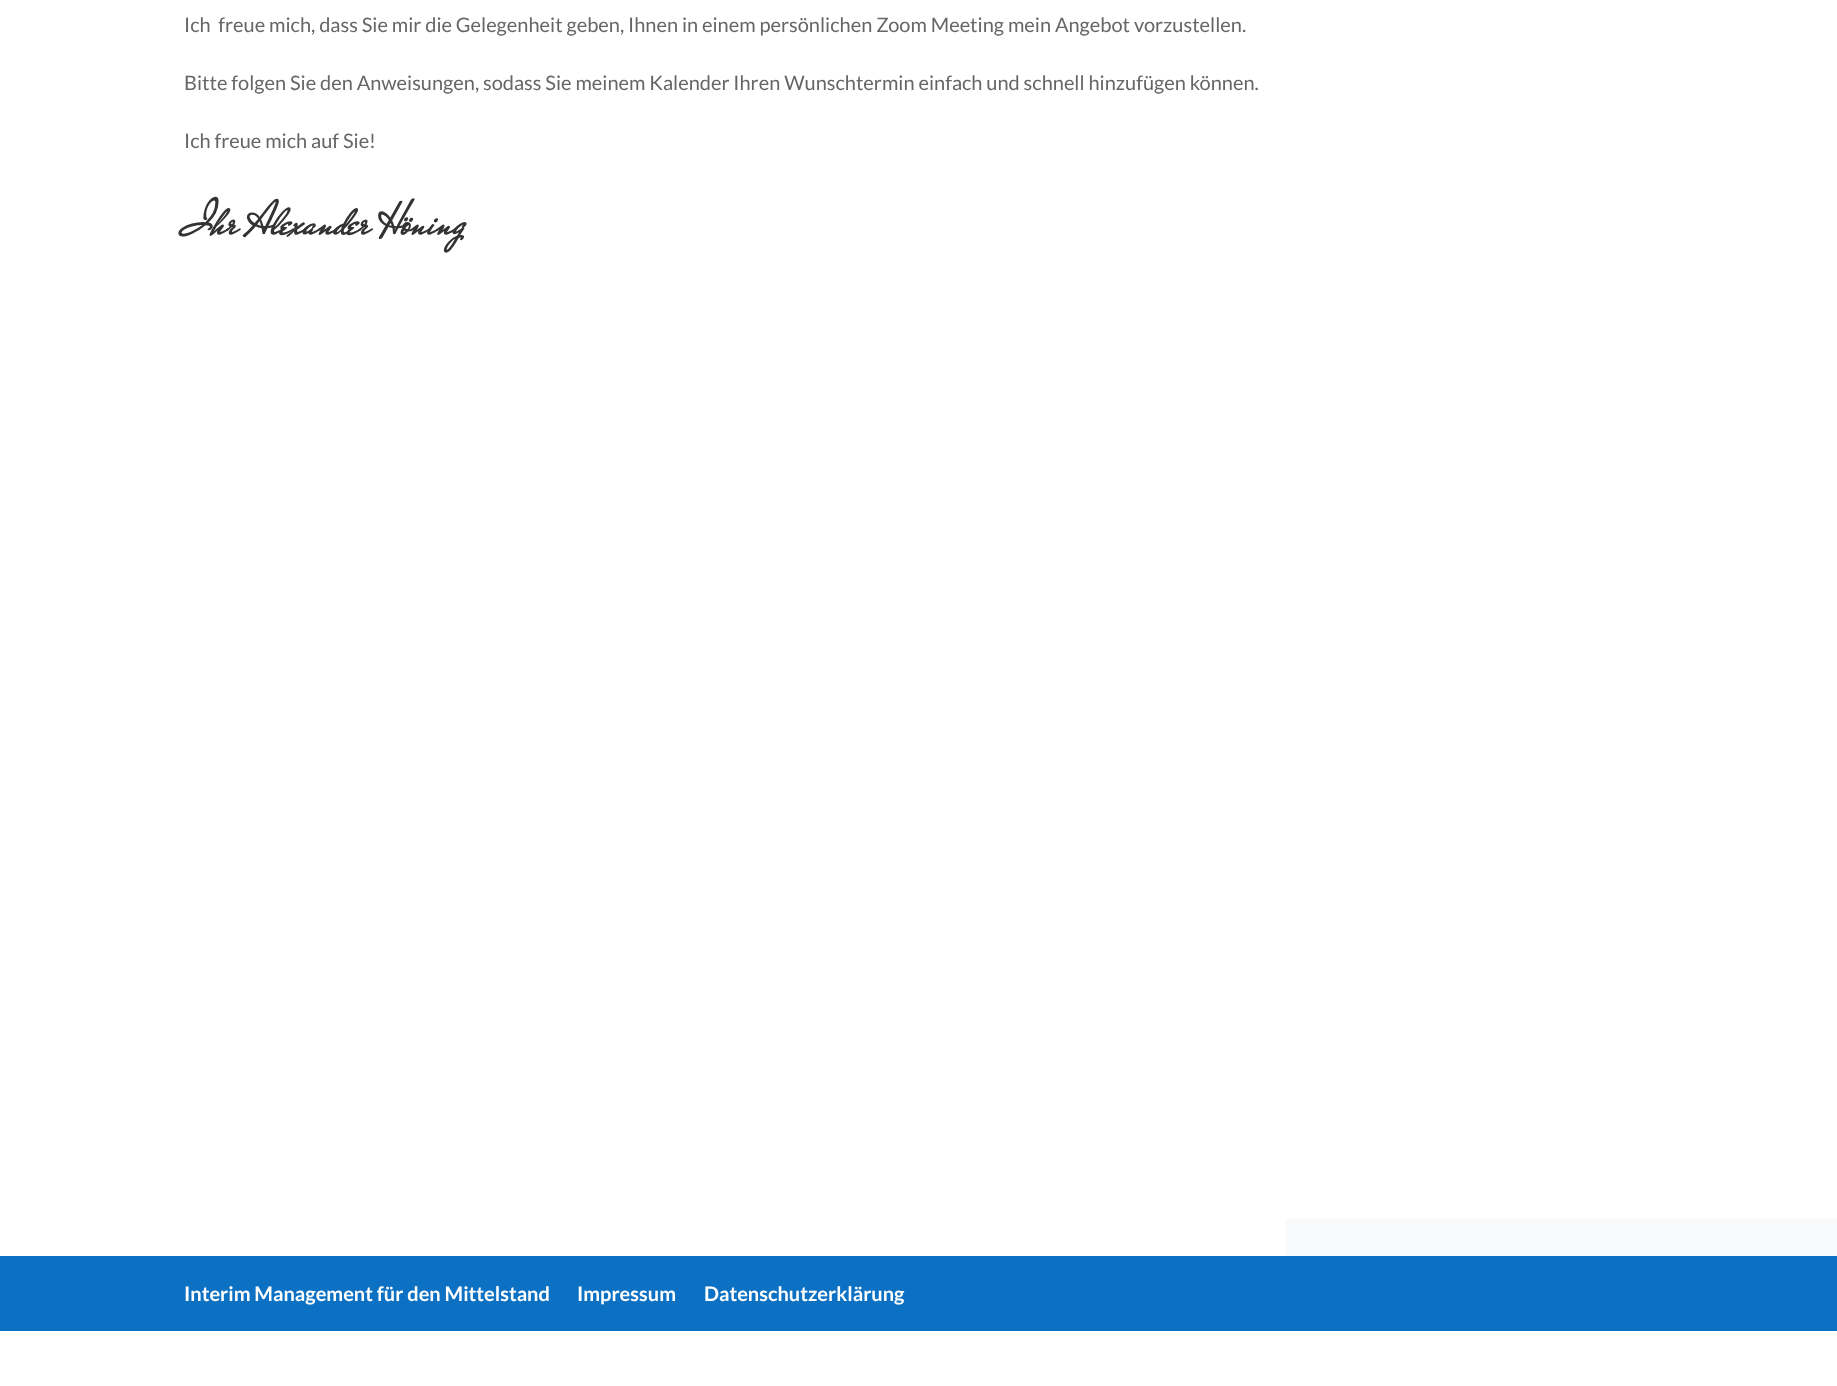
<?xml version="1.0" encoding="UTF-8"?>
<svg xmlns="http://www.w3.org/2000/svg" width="1837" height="1386">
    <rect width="100%" height="100%" fill="#FFFFFF"/>
    <text x="184" y="32" font-family="Lato" font-size="20" fill="#666666" xml:space="preserve">Ich  freue mich, dass Sie mir die Gelegenheit geben, Ihnen in einem persönlichen Zoom Meeting mein Angebot vorzustellen.</text>
    <text x="184" y="90" font-family="Lato" font-size="20" fill="#666666">Bitte folgen Sie den Anweisungen, sodass Sie meinem Kalender Ihren Wunschtermin einfach und schnell hinzufügen können.</text>
    <text x="184" y="148" font-family="Lato" font-size="20" fill="#666666">Ich freue mich auf Sie!</text>
    <text x="184" y="234" font-family="Mr De Haviland" font-size="47.5" font-weight="700" fill="#333333">Ihr Alexander Höning</text>
    <rect x="1286" y="1219" width="551" height="37" fill="#F8F9FB"/>
    <rect x="0" y="1256" width="1837" height="75" fill="#0C71C3"/>
    <text x="184" y="1301" font-family="Lato" font-size="20" font-weight="700" fill="#FFFFFF">Interim Management für den Mittelstand</text>
    <text x="577" y="1301" font-family="Lato" font-size="20" font-weight="700" fill="#FFFFFF">Impressum</text>
    <text x="704" y="1301" font-family="Lato" font-size="20" font-weight="700" fill="#FFFFFF">Datenschutzerklärung</text>
</svg>
